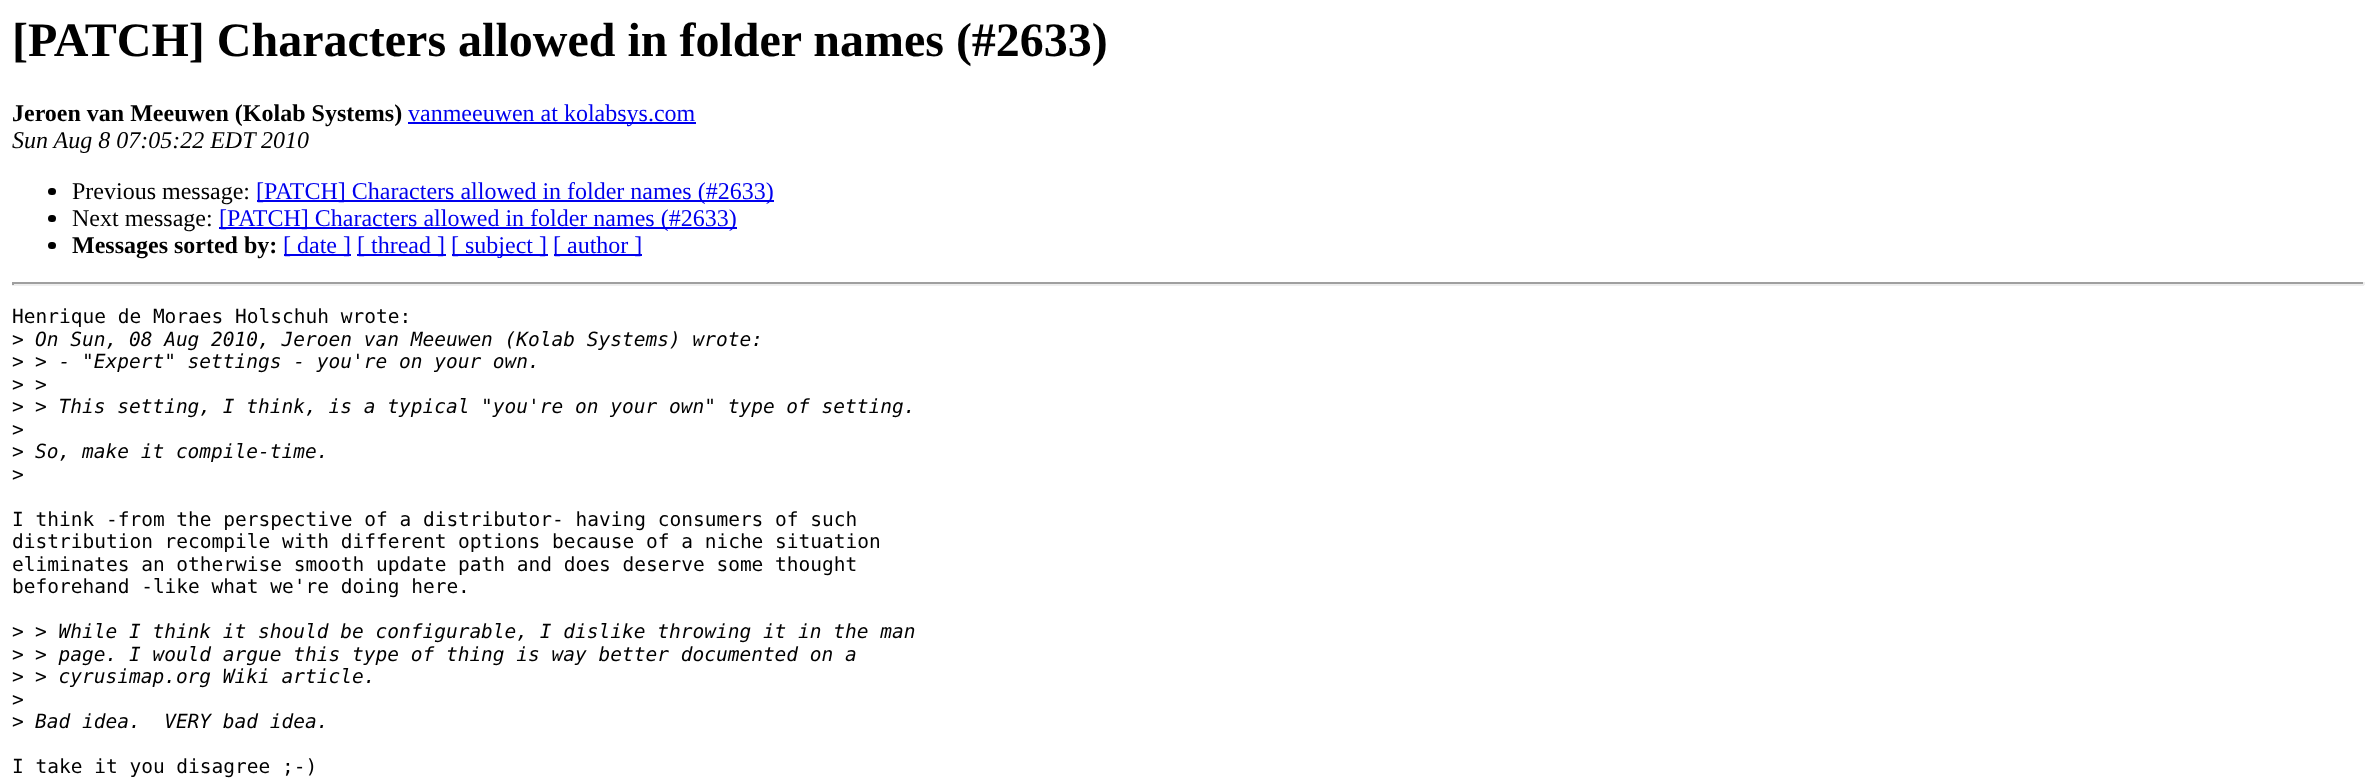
<?xml version="1.0" encoding="UTF-8"?>
<svg xmlns="http://www.w3.org/2000/svg" width="2376" height="781">
    <rect width="100%" height="100%" fill="#FFFFFF"/>
    <text x="12" y="56" font-family="Liberation Serif" font-size="48" font-weight="700" fill="#000000">[PATCH] Characters allowed in folder names (#2633)</text>
    <text x="12" y="121" font-family="Liberation Serif" font-size="24" font-weight="700" fill="#000000">Jeroen van Meeuwen (Kolab Systems)</text>
    <rect x="408" y="122" width="288" height="2" fill="#0000EE"/>
    <text x="408" y="121" font-family="Liberation Serif" font-size="24" fill="#0000EE">vanmeeuwen at kolabsys.com</text>
    <text x="12" y="148" font-family="Liberation Serif" font-size="24" font-style="italic" fill="#000000">Sun Aug 8 07:05:22 EDT 2010</text>
    <rect x="48" y="188" width="8" height="7" rx="3.5" fill="#000000"/>
    <text x="72" y="199" font-family="Liberation Serif" font-size="24" fill="#000000">Previous message:</text>
    <rect x="257" y="200" width="517" height="2" fill="#0000EE"/>
    <text x="256" y="199" font-family="Liberation Serif" font-size="24" fill="#0000EE">[PATCH] Characters allowed in folder names (#2633)</text>
    <rect x="48" y="215" width="8" height="7" rx="3.5" fill="#000000"/>
    <text x="72" y="226" font-family="Liberation Serif" font-size="24" fill="#000000">Next message:</text>
    <rect x="219" y="227" width="518" height="2" fill="#0000EE"/>
    <text x="219" y="226" font-family="Liberation Serif" font-size="24" fill="#0000EE">[PATCH] Characters allowed in folder names (#2633)</text>
    <rect x="48" y="242" width="8" height="7" rx="3.5" fill="#000000"/>
    <text x="72" y="253" font-family="Liberation Serif" font-size="24" font-weight="700" fill="#000000">Messages sorted by:</text>
    <rect x="284" y="254" width="67" height="2" fill="#0000EE"/>
    <text x="283" y="253" font-family="Liberation Serif" font-size="24" fill="#0000EE">[ date ]</text>
    <rect x="357" y="254" width="89" height="2" fill="#0000EE"/>
    <text x="357" y="253" font-family="Liberation Serif" font-size="24" fill="#0000EE">[ thread ]</text>
    <rect x="452" y="254" width="96" height="2" fill="#0000EE"/>
    <text x="451" y="253" font-family="Liberation Serif" font-size="24" fill="#0000EE">[ subject ]</text>
    <rect x="554" y="254" width="88" height="2" fill="#0000EE"/>
    <text x="553" y="253" font-family="Liberation Serif" font-size="24" fill="#0000EE">[ author ]</text>
    <rect x="12" y="282" width="2352" height="2" fill="#9F9F9F"/>
    <rect x="2363" y="282" width="2" height="3" fill="#EEEEEE"/>
    <rect x="12" y="284" width="2352" height="2" fill="#EEEEEE"/>
    <rect x="12" y="282" width="2" height="3" fill="#9F9F9F"/>
    <text font-family="DejaVu Sans Mono" font-size="19.5" fill="#000000">
        <tspan x="12" y="323">Henrique de Moraes Holschuh wrote:</tspan>
        <tspan x="12" y="346">&gt;</tspan>
    </text>
    <text x="35" y="346" font-family="DejaVu Sans Mono" font-size="19.5" font-style="italic" fill="#000000">On Sun, 08 Aug 2010, Jeroen van Meeuwen (Kolab Systems) wrote:</text>
    <text x="12" y="368" font-family="DejaVu Sans Mono" font-size="19.5" fill="#000000">&gt;</text>
    <text x="35" y="368" font-family="DejaVu Sans Mono" font-size="19.5" font-style="italic" fill="#000000">&gt; - "Expert" settings - you're on your own.</text>
    <text x="12" y="391" font-family="DejaVu Sans Mono" font-size="19.5" fill="#000000">&gt;</text>
    <text x="35" y="391" font-family="DejaVu Sans Mono" font-size="19.5" font-style="italic" fill="#000000">&gt;</text>
    <text x="12" y="413" font-family="DejaVu Sans Mono" font-size="19.5" fill="#000000">&gt;</text>
    <text x="35" y="413" font-family="DejaVu Sans Mono" font-size="19.5" font-style="italic" fill="#000000">&gt; This setting, I think, is a typical "you're on your own" type of setting.</text>
    <text font-family="DejaVu Sans Mono" font-size="19.5" fill="#000000">
        <tspan x="12" y="436">&gt;</tspan>
        <tspan x="12" y="458">&gt;</tspan>
    </text>
    <text x="35" y="458" font-family="DejaVu Sans Mono" font-size="19.5" font-style="italic" fill="#000000">So, make it compile-time.</text>
    <text x="12" y="481" font-family="DejaVu Sans Mono" font-size="19.5" fill="#000000">&gt;</text>
    <text font-family="DejaVu Sans Mono" font-size="19.5" fill="#000000">
        <tspan x="12" y="526">I think -from the perspective of a distributor- having consumers of such</tspan>
        <tspan x="12" y="548">distribution recompile with different options because of a niche situation</tspan>
        <tspan x="12" y="571">eliminates an otherwise smooth update path and does deserve some thought</tspan>
        <tspan x="12" y="593">beforehand -like what we're doing here.</tspan>
    </text>
    <text x="12" y="638" font-family="DejaVu Sans Mono" font-size="19.5" fill="#000000">&gt;</text>
    <text x="35" y="638" font-family="DejaVu Sans Mono" font-size="19.5" font-style="italic" fill="#000000">&gt; While I think it should be configurable, I dislike throwing it in the man</text>
    <text x="12" y="661" font-family="DejaVu Sans Mono" font-size="19.5" fill="#000000">&gt;</text>
    <text x="35" y="661" font-family="DejaVu Sans Mono" font-size="19.5" font-style="italic" fill="#000000">&gt; page. I would argue this type of thing is way better documented on a</text>
    <text x="12" y="683" font-family="DejaVu Sans Mono" font-size="19.5" fill="#000000">&gt;</text>
    <text x="35" y="683" font-family="DejaVu Sans Mono" font-size="19.5" font-style="italic" fill="#000000">&gt; cyrusimap.org Wiki article.</text>
    <text font-family="DejaVu Sans Mono" font-size="19.5" fill="#000000">
        <tspan x="12" y="706">&gt;</tspan>
        <tspan x="12" y="728">&gt;</tspan>
    </text>
    <text x="35" y="728" font-family="DejaVu Sans Mono" font-size="19.5" font-style="italic" fill="#000000" xml:space="preserve">Bad idea.  VERY bad idea.</text>
    <text x="12" y="773" font-family="DejaVu Sans Mono" font-size="19.5" fill="#000000">I take it you disagree ;-)</text>
</svg>
